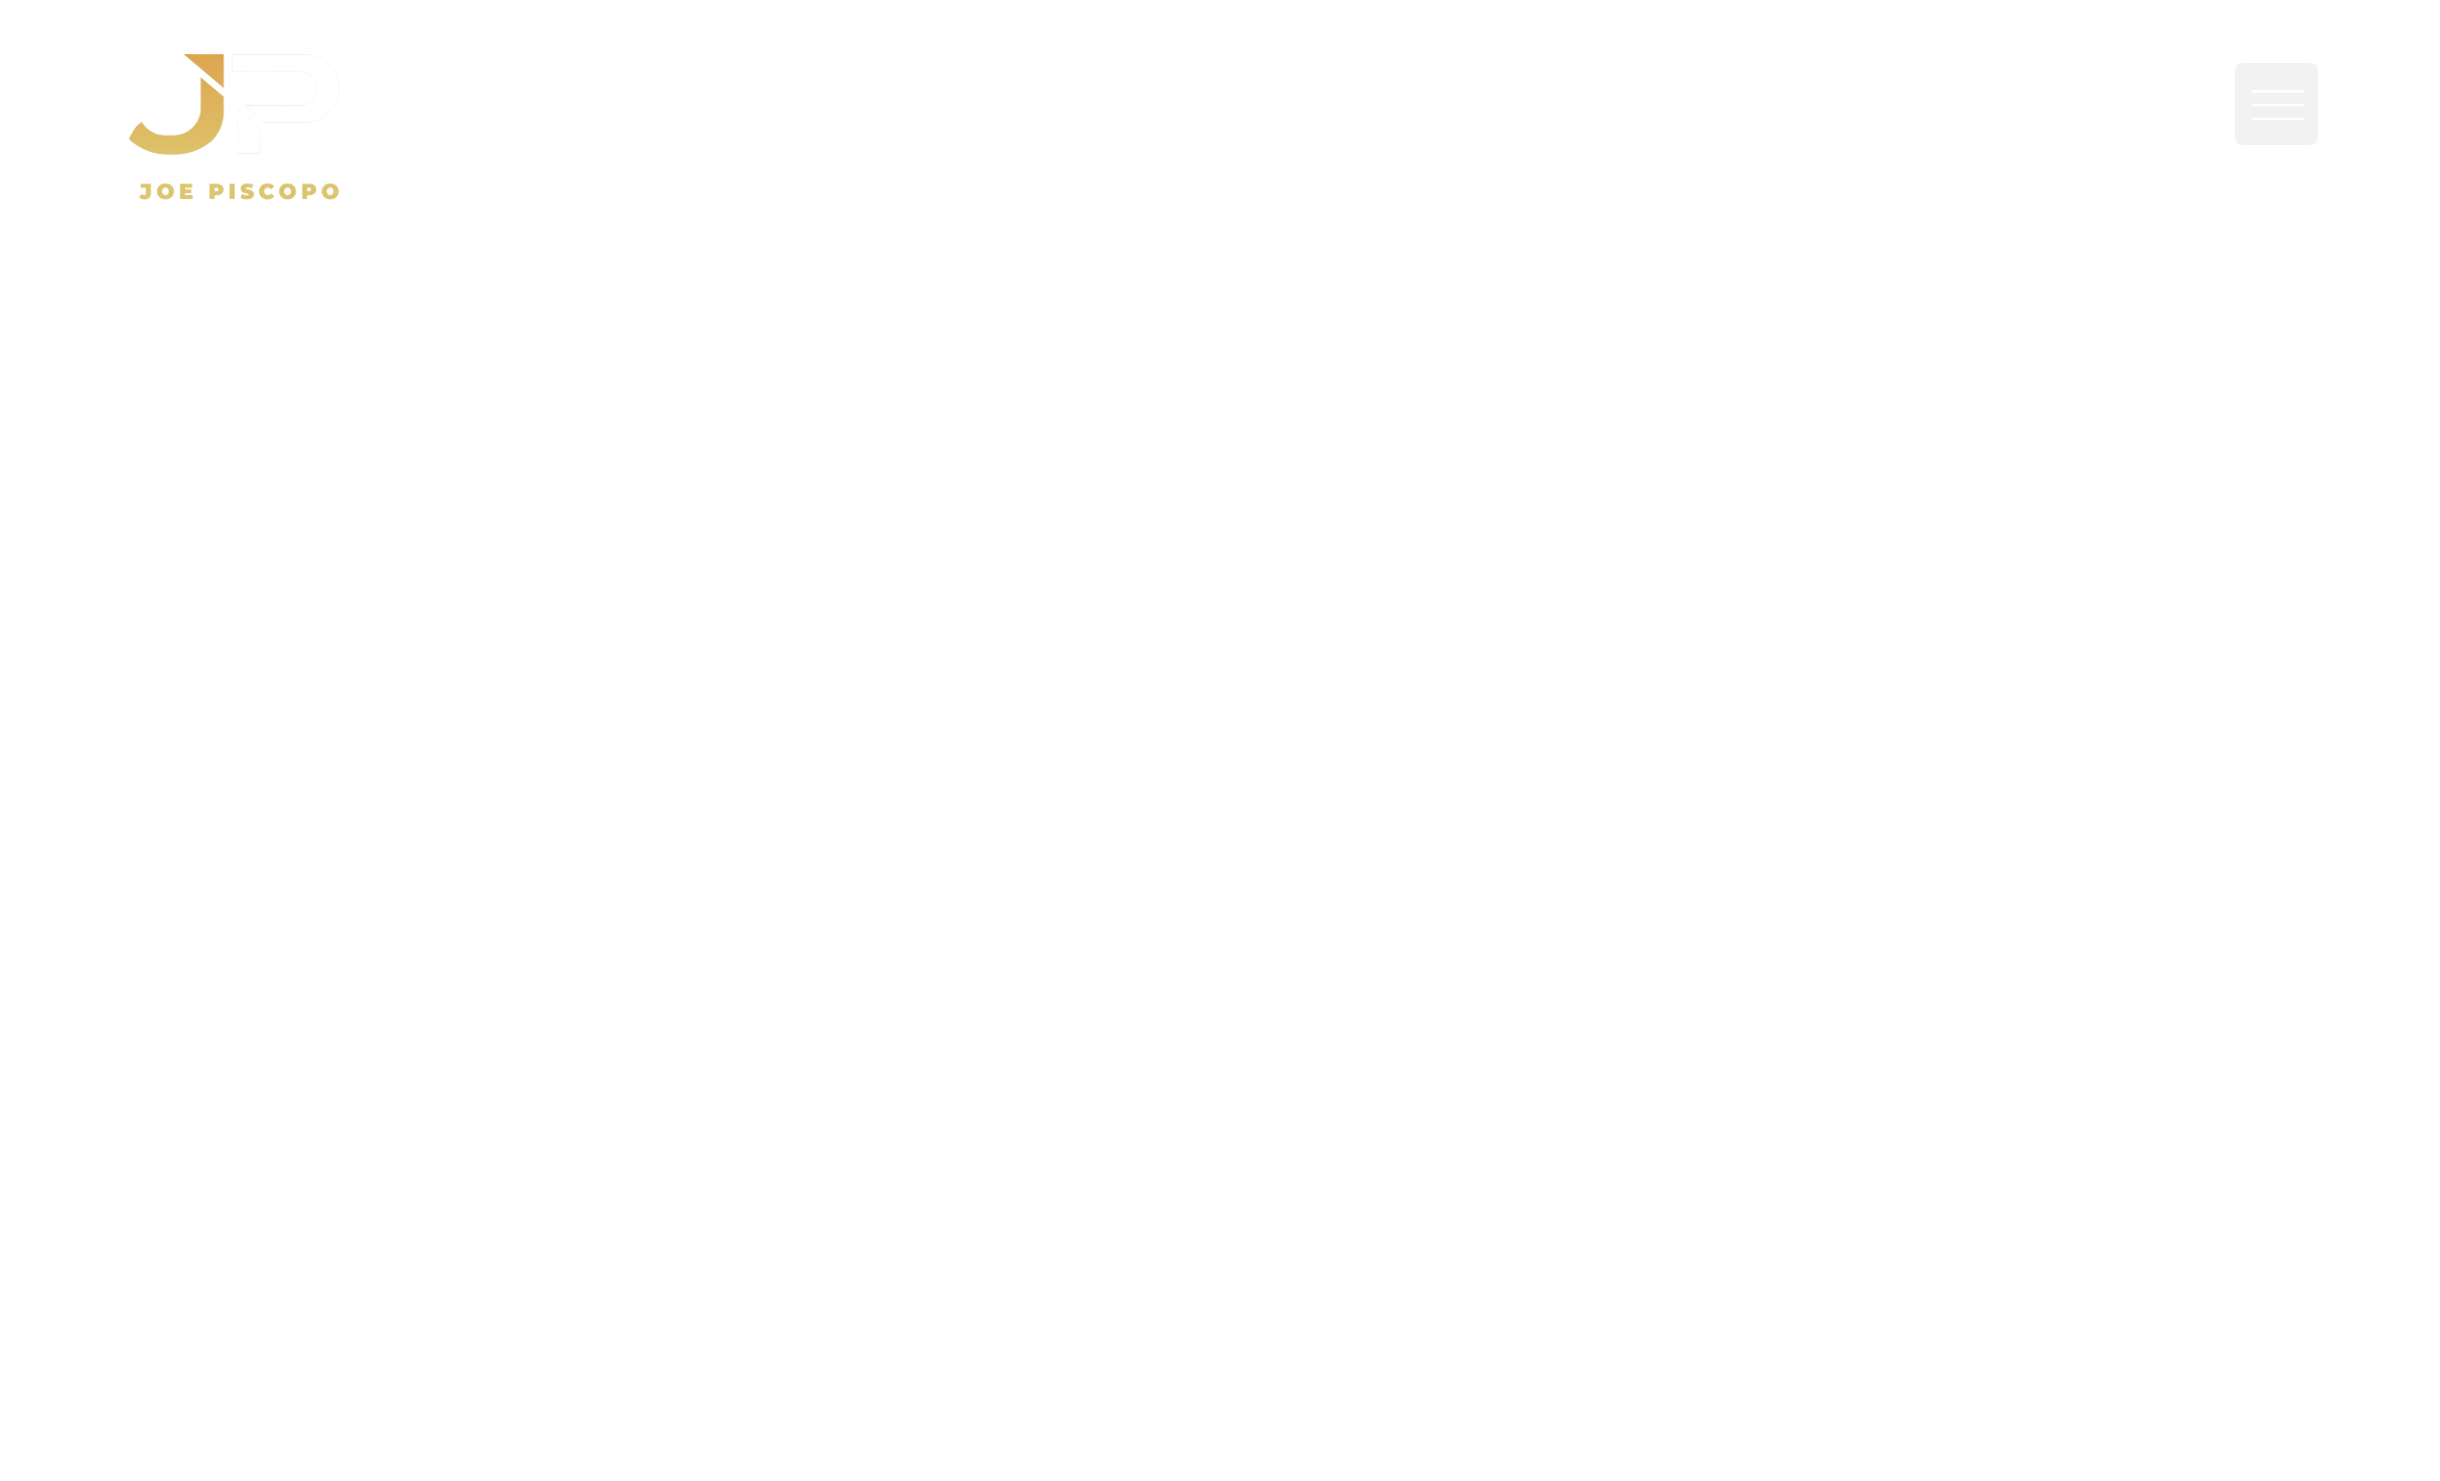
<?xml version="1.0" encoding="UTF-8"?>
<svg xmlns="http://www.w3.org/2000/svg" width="2440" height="1481">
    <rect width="100%" height="100%" fill="#FFFFFF"/>
    <image x="128" y="54" width="212" height="146" href="img_01.png"/>
    <rect x="2235" y="63" width="83" height="82" rx="8" fill="#F2F2F2"/>
    <rect x="2252" y="90" width="52" height="3" fill="#FEFEFE"/>
    <path d="M 2252 105 H 2304 M 2252 119 H 2304" fill="none" stroke="#FFFFFF" stroke-width="2.7"/>
</svg>
